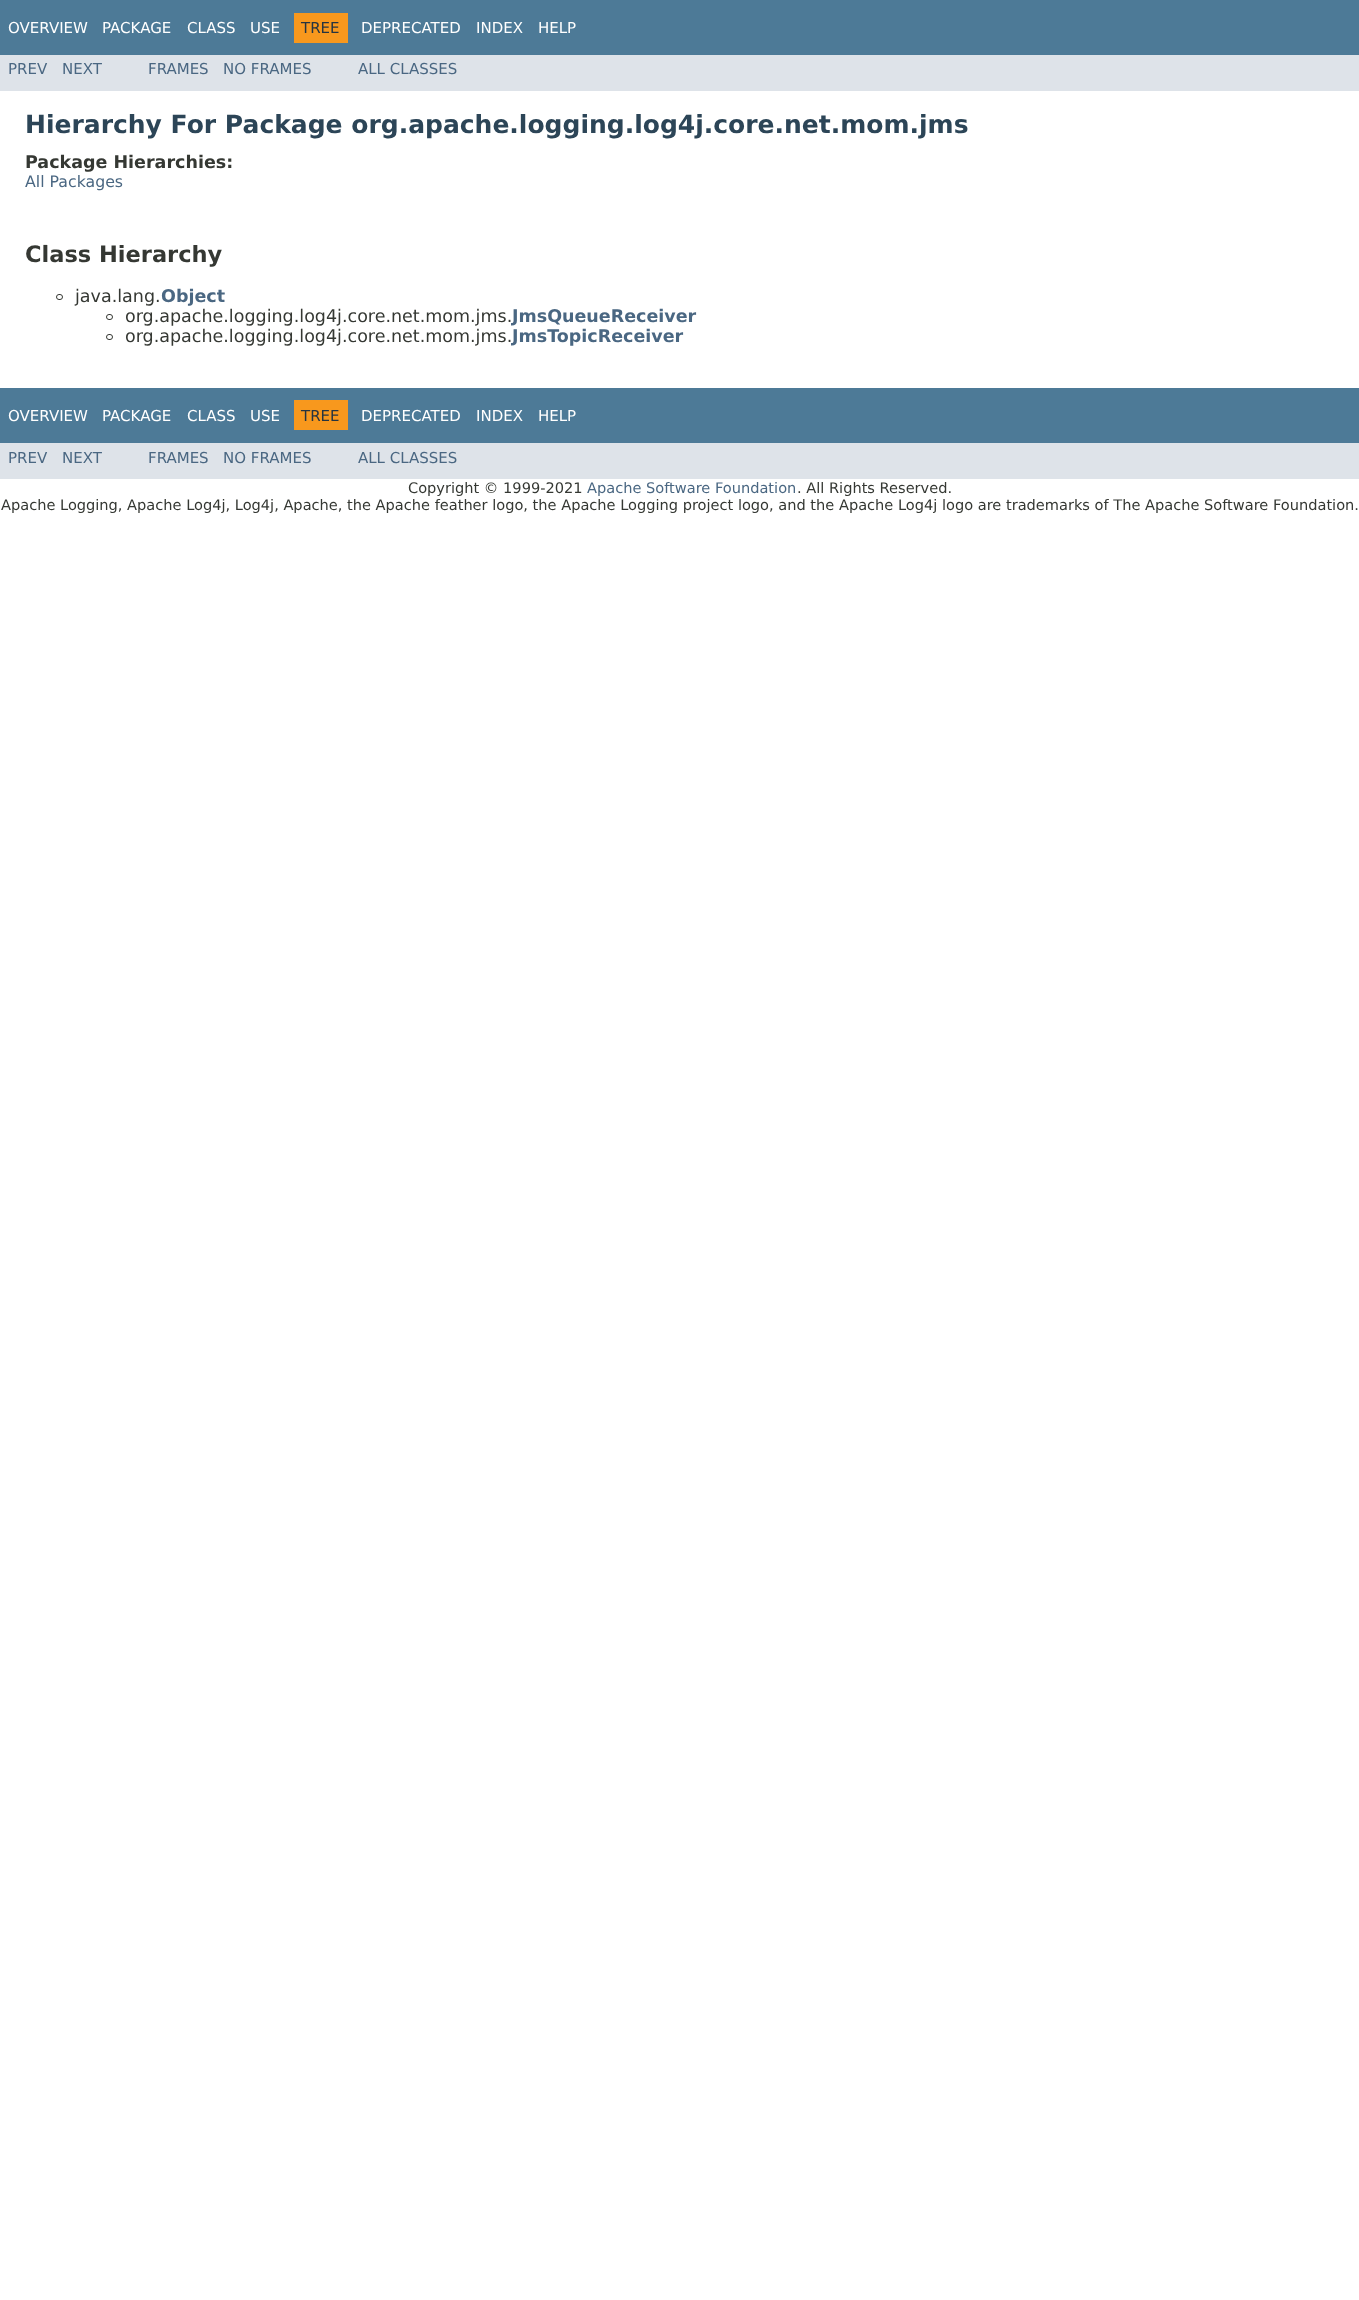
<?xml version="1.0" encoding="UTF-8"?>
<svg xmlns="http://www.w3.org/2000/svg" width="1359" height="2300">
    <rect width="100%" height="100%" fill="#FFFFFF"/>
    <rect x="0" y="0" width="1359" height="55" fill="#4D7A97"/>
    <text x="8" y="33" font-family="DejaVu Sans" font-size="15" fill="#FFFFFF">OVERVIEW</text>
    <text x="102" y="33" font-family="DejaVu Sans" font-size="15" fill="#FFFFFF">PACKAGE</text>
    <text x="187" y="33" font-family="DejaVu Sans" font-size="15" fill="#FFFFFF">CLASS</text>
    <text x="250" y="33" font-family="DejaVu Sans" font-size="15" fill="#FFFFFF">USE</text>
    <rect x="294" y="13" width="54" height="30" fill="#F8981D"/>
    <text x="301" y="33" font-family="DejaVu Sans" font-size="15" fill="#253441">TREE</text>
    <text x="361" y="33" font-family="DejaVu Sans" font-size="15" fill="#FFFFFF">DEPRECATED</text>
    <text x="476" y="33" font-family="DejaVu Sans" font-size="15" fill="#FFFFFF">INDEX</text>
    <text x="538" y="33" font-family="DejaVu Sans" font-size="15" fill="#FFFFFF">HELP</text>
    <rect x="0" y="55" width="1359" height="36" fill="#DEE3E9"/>
    <text x="8" y="74" font-family="DejaVu Sans" font-size="15" fill="#4A6782">PREV</text>
    <text x="62" y="74" font-family="DejaVu Sans" font-size="15" fill="#4A6782">NEXT</text>
    <text x="148" y="74" font-family="DejaVu Sans" font-size="15" fill="#4A6782">FRAMES</text>
    <text x="223" y="74" font-family="DejaVu Sans" font-size="15" fill="#4A6782">NO FRAMES</text>
    <text x="358" y="74" font-family="DejaVu Sans" font-size="15" fill="#4A6782">ALL CLASSES</text>
    <text x="25" y="133" font-family="DejaVu Sans" font-size="25" font-weight="700" fill="#2C4557">Hierarchy For Package org.apache.logging.log4j.core.net.mom.jms</text>
    <text x="25" y="168" font-family="DejaVu Sans" font-size="17.5" font-weight="700" fill="#353833">Package Hierarchies:</text>
    <text x="25" y="187" font-family="DejaVu Sans" font-size="15.75" fill="#4A6782">All Packages</text>
    <text x="25" y="262" font-family="DejaVu Sans" font-size="22.5" font-weight="700" fill="#353833">Class Hierarchy</text>
    <rect x="56.5" y="294.5" width="6" height="5" rx="2.5" fill="none" stroke="#353833"/>
    <text x="75" y="302" font-family="DejaVu Sans" font-size="17.5" fill="#353833">java.lang.</text>
    <text x="161" y="302" font-family="DejaVu Sans" font-size="17.5" font-weight="700" fill="#4A6782">Object</text>
    <rect x="106.5" y="314.5" width="6" height="5" rx="2.5" fill="none" stroke="#353833"/>
    <text x="125" y="322" font-family="DejaVu Sans" font-size="17.5" fill="#353833">org.apache.logging.log4j.core.net.mom.jms.</text>
    <text x="512" y="322" font-family="DejaVu Sans" font-size="17.5" font-weight="700" fill="#4A6782">JmsQueueReceiver</text>
    <rect x="106.5" y="334.5" width="6" height="5" rx="2.5" fill="none" stroke="#353833"/>
    <text x="125" y="342" font-family="DejaVu Sans" font-size="17.5" fill="#353833">org.apache.logging.log4j.core.net.mom.jms.</text>
    <text x="512" y="342" font-family="DejaVu Sans" font-size="17.5" font-weight="700" fill="#4A6782">JmsTopicReceiver</text>
    <rect x="0" y="388" width="1359" height="55" fill="#4D7A97"/>
    <text x="8" y="421" font-family="DejaVu Sans" font-size="15" fill="#FFFFFF">OVERVIEW</text>
    <text x="102" y="421" font-family="DejaVu Sans" font-size="15" fill="#FFFFFF">PACKAGE</text>
    <text x="187" y="421" font-family="DejaVu Sans" font-size="15" fill="#FFFFFF">CLASS</text>
    <text x="250" y="421" font-family="DejaVu Sans" font-size="15" fill="#FFFFFF">USE</text>
    <rect x="294" y="400" width="54" height="30" fill="#F8981D"/>
    <text x="301" y="421" font-family="DejaVu Sans" font-size="15" fill="#253441">TREE</text>
    <text x="361" y="421" font-family="DejaVu Sans" font-size="15" fill="#FFFFFF">DEPRECATED</text>
    <text x="476" y="421" font-family="DejaVu Sans" font-size="15" fill="#FFFFFF">INDEX</text>
    <text x="538" y="421" font-family="DejaVu Sans" font-size="15" fill="#FFFFFF">HELP</text>
    <rect x="0" y="443" width="1359" height="36" fill="#DEE3E9"/>
    <text x="8" y="463" font-family="DejaVu Sans" font-size="15" fill="#4A6782">PREV</text>
    <text x="62" y="463" font-family="DejaVu Sans" font-size="15" fill="#4A6782">NEXT</text>
    <text x="148" y="463" font-family="DejaVu Sans" font-size="15" fill="#4A6782">FRAMES</text>
    <text x="223" y="463" font-family="DejaVu Sans" font-size="15" fill="#4A6782">NO FRAMES</text>
    <text x="358" y="463" font-family="DejaVu Sans" font-size="15" fill="#4A6782">ALL CLASSES</text>
    <text x="408" y="493" font-family="DejaVu Sans" font-size="14.58" fill="#353833">Copyright © 1999-2021</text>
    <text x="587" y="493" font-family="DejaVu Sans" font-size="14.58" fill="#4A6782">Apache Software Foundation</text>
    <text x="797" y="493" font-family="DejaVu Sans" font-size="14.58" fill="#353833">. All Rights Reserved.</text>
    <text x="1" y="510" font-family="DejaVu Sans" font-size="14.58" fill="#353833">Apache Logging, Apache Log4j, Log4j, Apache, the Apache feather logo, the Apache Logging project logo, and the Apache Log4j logo are trademarks of The Apache Software Foundation.</text>
</svg>
